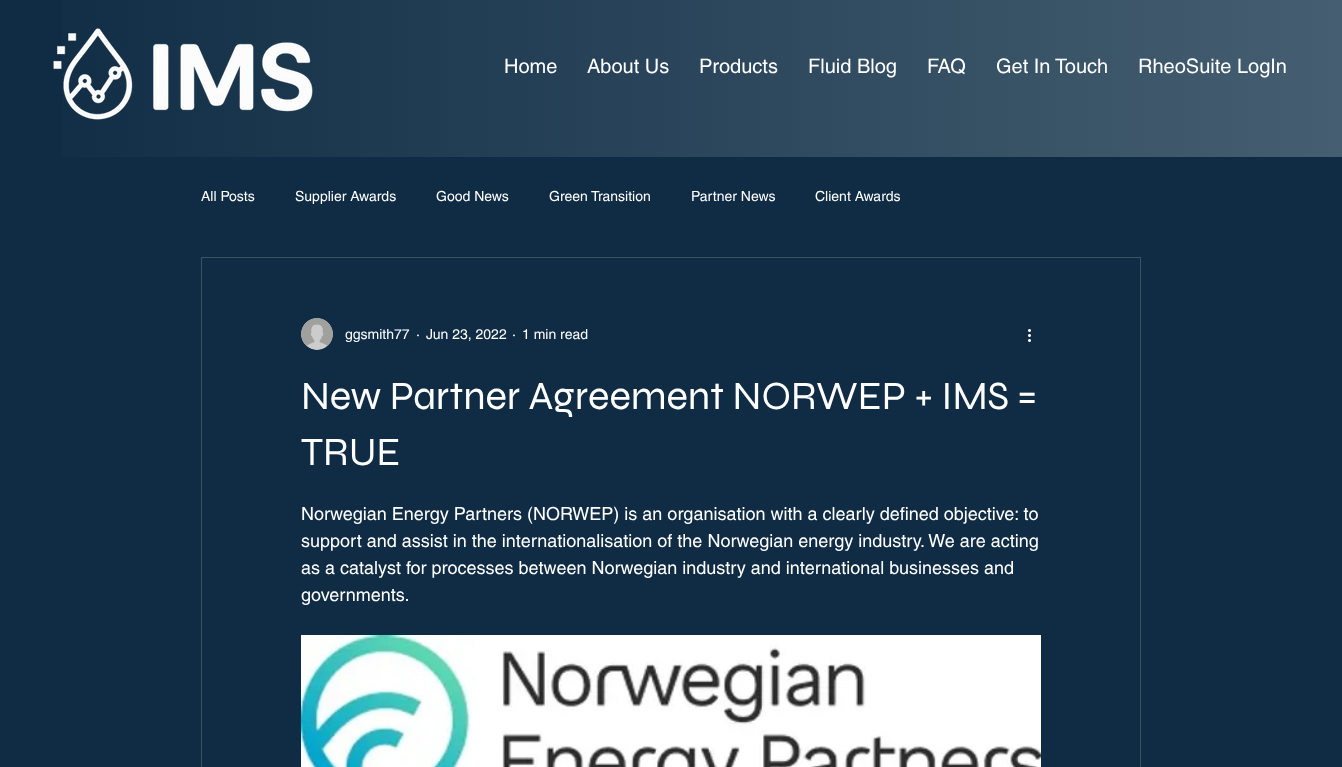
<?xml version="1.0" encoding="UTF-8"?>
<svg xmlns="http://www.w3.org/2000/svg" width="1342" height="767">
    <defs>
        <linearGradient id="g1" gradientUnits="userSpaceOnUse" x1="0" y1="79" x2="1342" y2="78"><stop offset="0" stop-color="#0F2C44"/><stop offset="1" stop-color="#455E71"/></linearGradient>
    </defs>
    <rect width="100%" height="100%" fill="#0F2C44"/>
    <rect x="62" y="0" width="1280" height="157" fill="url(#g1)"/>
    <image x="53" y="28" width="260" height="92" href="img_01.png"/>
    <text x="504" y="73" font-family="helvetica" font-size="20" fill="#FFFFFF">Home</text>
    <text x="587" y="73" font-family="helvetica" font-size="20" fill="#FFFFFF">About Us</text>
    <text x="699" y="73" font-family="helvetica" font-size="20" fill="#FFFFFF">Products</text>
    <text x="808" y="73" font-family="helvetica" font-size="20" fill="#FFFFFF">Fluid Blog</text>
    <text x="927" y="73" font-family="helvetica" font-size="20" fill="#FFFFFF">FAQ</text>
    <text x="996" y="73" font-family="helvetica" font-size="20" fill="#FFFFFF">Get In Touch</text>
    <text x="1138" y="73" font-family="helvetica" font-size="20" fill="#FFFFFF">RheoSuite LogIn</text>
    <text x="201" y="201" font-family="helvetica" font-size="14" fill="#FFFFFF">All Posts</text>
    <text x="295" y="201" font-family="helvetica" font-size="14" fill="#FFFFFF">Supplier Awards</text>
    <text x="436" y="201" font-family="helvetica" font-size="14" fill="#FFFFFF">Good News</text>
    <text x="549" y="201" font-family="helvetica" font-size="14" fill="#FFFFFF">Green Transition</text>
    <text x="691" y="201" font-family="helvetica" font-size="14" fill="#FFFFFF">Partner News</text>
    <text x="815" y="201" font-family="helvetica" font-size="14" fill="#FFFFFF">Client Awards</text>
    <rect x="201.5" y="257.5" width="939" height="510" fill="none" stroke="#385266"/>
    <image x="301" y="318" width="32" height="32" href="img_02.png"/>
    <text x="345" y="339" font-family="helvetica" font-size="14" fill="#FFFFFF">ggsmith77</text>
    <text x="416" y="339" font-family="helvetica" font-size="14" fill="#FFFFFF">·</text>
    <text x="426" y="339" font-family="helvetica" font-size="14" fill="#FFFFFF">Jun 23, 2022</text>
    <text x="512" y="339" font-family="helvetica" font-size="14" fill="#FFFFFF">·</text>
    <text x="522" y="339" font-family="helvetica" font-size="14" fill="#FFFFFF">1 min read</text>
    <image x="1028" y="329" width="3" height="13" href="img_03.png"/>
    <text font-family="Syne" font-size="40" fill="#FFFFFF">
        <tspan x="301" y="409">New Partner Agreement NORWEP + IMS =</tspan>
        <tspan x="301" y="465">TRUE</tspan>
    </text>
    <text font-family="helvetica" font-size="18" fill="#FFFFFF">
        <tspan x="301" y="520">Norwegian Energy Partners (NORWEP) is an organisation with a clearly defined objective: to</tspan>
        <tspan x="301" y="547">support and assist in the internationalisation of the Norwegian energy industry. We are acting</tspan>
        <tspan x="301" y="574">as a catalyst for processes between Norwegian industry and international businesses and</tspan>
        <tspan x="301" y="601">governments.</tspan>
    </text>
    <image x="301" y="635" width="740" height="132" href="img_04.png"/>
</svg>
